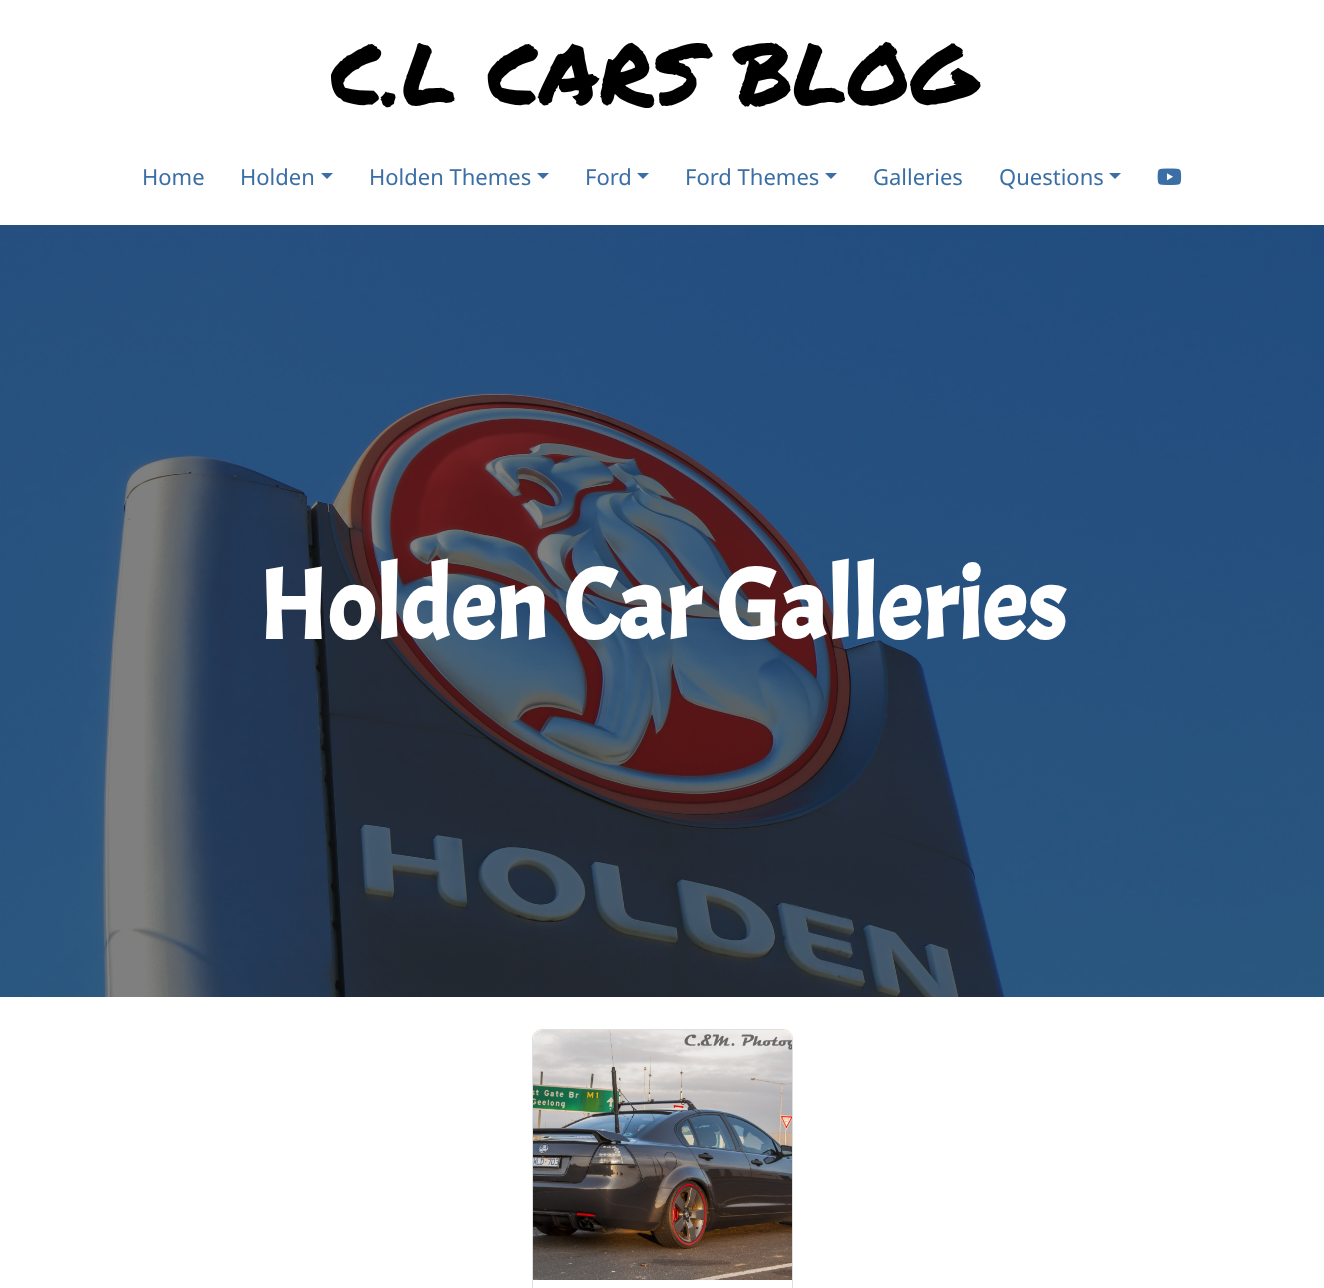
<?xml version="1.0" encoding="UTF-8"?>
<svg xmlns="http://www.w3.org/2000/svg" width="1324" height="1288">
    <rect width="100%" height="100%" fill="#FFFFFF"/>
    <text x="331" y="105" font-family="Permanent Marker" font-size="85" fill="#000000">C.L CARS BLOG</text>
    <text x="142" y="185" font-family="Noto Sans" font-size="22" fill="#3A6EA5">Home</text>
    <text x="240" y="185" font-family="Noto Sans" font-size="22" fill="#3A6EA5">Holden</text>
    <path d="M 321 173 H 333 L 327 179 Z" fill="#3A6EA5"/>
    <text x="369" y="185" font-family="Noto Sans" font-size="22" fill="#3A6EA5">Holden Themes</text>
    <path d="M 537 173 H 549 L 543 179 Z" fill="#3A6EA5"/>
    <text x="585" y="185" font-family="Noto Sans" font-size="22" fill="#3A6EA5">Ford</text>
    <path d="M 637 173 H 649 L 643 179 Z" fill="#3A6EA5"/>
    <text x="685" y="185" font-family="Noto Sans" font-size="22" fill="#3A6EA5">Ford Themes</text>
    <path d="M 825 173 H 837 L 831 179 Z" fill="#3A6EA5"/>
    <text x="873" y="185" font-family="Noto Sans" font-size="22" fill="#3A6EA5">Galleries</text>
    <text x="999" y="185" font-family="Noto Sans" font-size="22" fill="#3A6EA5">Questions</text>
    <path d="M 1109 173 H 1121 L 1115 179 Z" fill="#3A6EA5"/>
    <image x="1157" y="168" width="25" height="17" href="img_01.png"/>
    <image x="0" y="225" width="1324" height="772" href="img_02.png"/>
    <text x="258" y="639" font-family="Acme" font-size="100" font-weight="700" fill="#FFFFFF">Holden Car Galleries</text>
    <rect x="532.5" y="1029.5" width="260" height="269" rx="9.5" fill="none" stroke="#DFDFDF"/>
    <image x="533" y="1030" width="259" height="250" href="img_03.png"/>
</svg>
